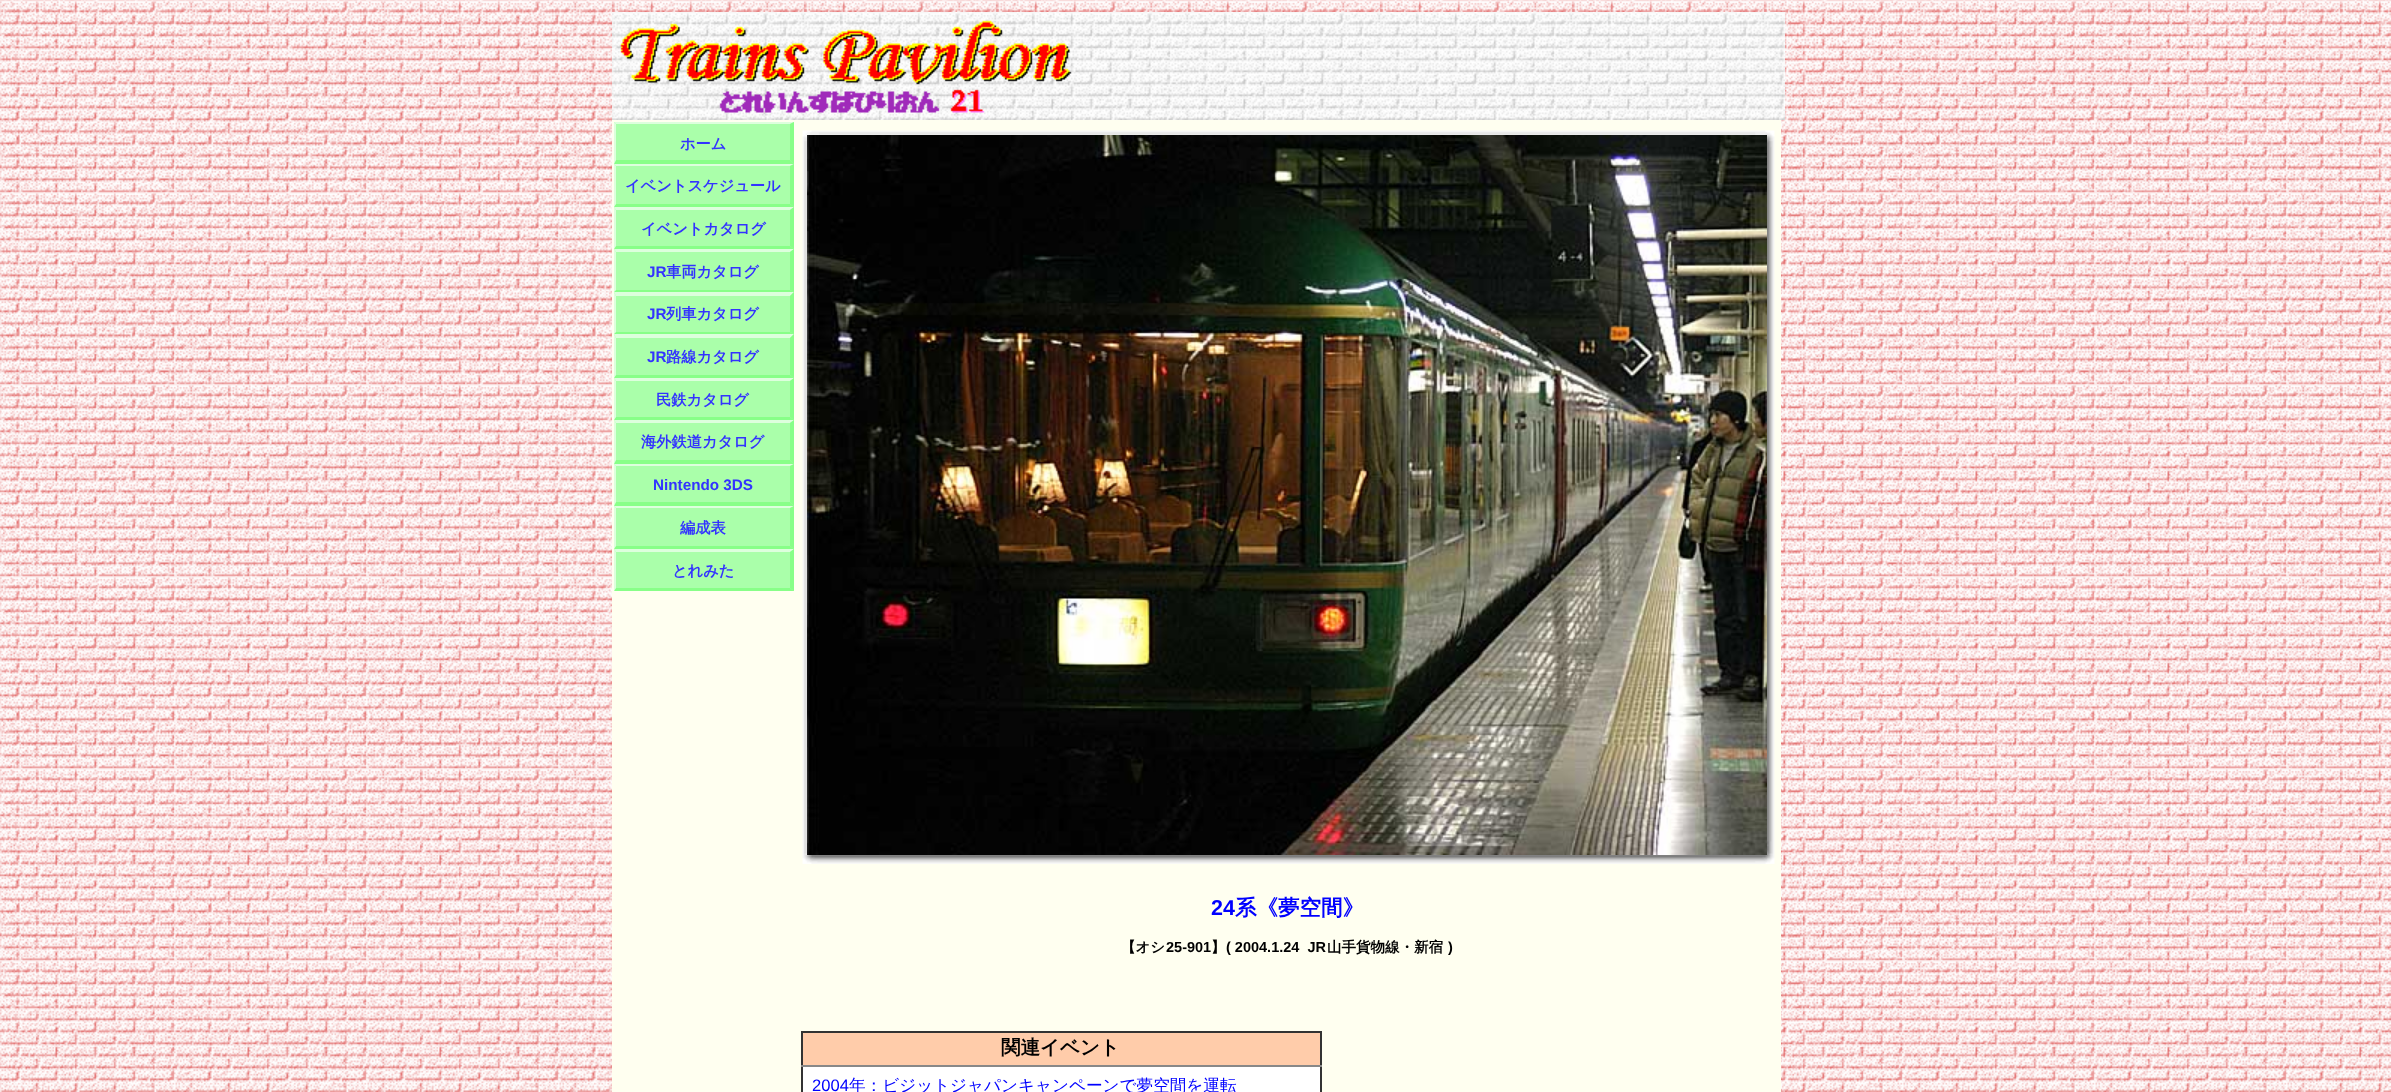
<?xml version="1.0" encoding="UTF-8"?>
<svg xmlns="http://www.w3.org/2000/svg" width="2391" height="1092">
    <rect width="100%" height="100%" fill="#FFFFFF"/>
    <image x="0" y="0" width="2391" height="1092" href="img_01.png"/>
    <image x="612" y="12" width="1173" height="108" href="img_02.png"/>
    <image x="620" y="20" width="452" height="93" href="img_03.png"/>
    <rect x="612" y="120" width="1169" height="972" fill="#FFFFF0"/>
    <rect x="614" y="122" width="180" height="469" fill="#AAFFAA"/>
    <path d="M 614 122 H 794 L 790 124 H 616 Z" fill="#DDFFDD"/>
    <path d="M 794 122 V 164 L 790 160 V 124 Z" fill="#88FF88"/>
    <path d="M 794 164 H 614 L 616 160 H 790 Z" fill="#88FF88"/>
    <path d="M 614 164 V 122 L 616 124 V 160 Z" fill="#DDFFDD"/>
    <text x="680" y="149" font-family="WenQuanYi Zen Hei" font-size="15.25" font-weight="700" fill="#3333FF">ホーム</text>
    <path d="M 614 164 H 794 L 790 166 H 616 Z" fill="#DDFFDD"/>
    <path d="M 794 164 V 207 L 790 204 V 166 Z" fill="#88FF88"/>
    <path d="M 794 207 H 614 L 616 204 H 790 Z" fill="#88FF88"/>
    <path d="M 614 207 V 164 L 616 166 V 204 Z" fill="#DDFFDD"/>
    <text x="625" y="191" font-family="WenQuanYi Zen Hei" font-size="15.25" font-weight="700" fill="#3333FF">イベントスケジュール</text>
    <path d="M 614 207 H 794 L 790 210 H 616 Z" fill="#DDFFDD"/>
    <path d="M 794 207 V 249 L 790 246 V 210 Z" fill="#88FF88"/>
    <path d="M 794 249 H 614 L 616 246 H 790 Z" fill="#88FF88"/>
    <path d="M 614 249 V 207 L 616 210 V 246 Z" fill="#DDFFDD"/>
    <text x="641" y="234" font-family="WenQuanYi Zen Hei" font-size="15.25" font-weight="700" fill="#3333FF">イベントカタログ</text>
    <path d="M 614 249 H 794 L 790 252 H 616 Z" fill="#DDFFDD"/>
    <path d="M 794 249 V 292 L 790 290 V 252 Z" fill="#88FF88"/>
    <path d="M 794 292 H 614 L 616 290 H 790 Z" fill="#88FF88"/>
    <path d="M 614 292 V 249 L 616 252 V 290 Z" fill="#DDFFDD"/>
    <text x="647" y="277" font-family="Liberation Sans" font-size="15.25" font-weight="700" fill="#3333FF">JR</text>
    <text x="666" y="277" font-family="WenQuanYi Zen Hei" font-size="15.25" font-weight="700" fill="#3333FF">車両カタログ</text>
    <path d="M 614 292 H 794 L 790 296 H 616 Z" fill="#DDFFDD"/>
    <path d="M 794 292 V 334 L 790 332 V 296 Z" fill="#88FF88"/>
    <path d="M 794 334 H 614 L 616 332 H 790 Z" fill="#88FF88"/>
    <path d="M 614 334 V 292 L 616 296 V 332 Z" fill="#DDFFDD"/>
    <text x="647" y="319" font-family="Liberation Sans" font-size="15.25" font-weight="700" fill="#3333FF">JR</text>
    <text x="666" y="319" font-family="WenQuanYi Zen Hei" font-size="15.25" font-weight="700" fill="#3333FF">列車カタログ</text>
    <path d="M 614 334 H 794 L 790 338 H 616 Z" fill="#DDFFDD"/>
    <path d="M 794 334 V 378 L 790 375 V 338 Z" fill="#88FF88"/>
    <path d="M 794 378 H 614 L 616 375 H 790 Z" fill="#88FF88"/>
    <path d="M 614 378 V 334 L 616 338 V 375 Z" fill="#DDFFDD"/>
    <text x="647" y="362" font-family="Liberation Sans" font-size="15.25" font-weight="700" fill="#3333FF">JR</text>
    <text x="666" y="362" font-family="WenQuanYi Zen Hei" font-size="15.25" font-weight="700" fill="#3333FF">路線カタログ</text>
    <path d="M 614 378 H 794 L 790 381 H 616 Z" fill="#DDFFDD"/>
    <path d="M 794 378 V 420 L 790 417 V 381 Z" fill="#88FF88"/>
    <path d="M 794 420 H 614 L 616 417 H 790 Z" fill="#88FF88"/>
    <path d="M 614 420 V 378 L 616 381 V 417 Z" fill="#DDFFDD"/>
    <text x="656" y="405" font-family="WenQuanYi Zen Hei" font-size="15.25" font-weight="700" fill="#3333FF">民鉄カタログ</text>
    <path d="M 614 420 H 794 L 790 423 H 616 Z" fill="#DDFFDD"/>
    <path d="M 794 420 V 464 L 790 460 V 423 Z" fill="#88FF88"/>
    <path d="M 794 464 H 614 L 616 460 H 790 Z" fill="#88FF88"/>
    <path d="M 614 464 V 420 L 616 423 V 460 Z" fill="#DDFFDD"/>
    <text x="641" y="447" font-family="WenQuanYi Zen Hei" font-size="15.25" font-weight="700" fill="#3333FF">海外鉄道カタログ</text>
    <path d="M 614 464 H 794 L 790 466 H 616 Z" fill="#DDFFDD"/>
    <path d="M 794 464 V 506 L 790 502 V 466 Z" fill="#88FF88"/>
    <path d="M 794 506 H 614 L 616 502 H 790 Z" fill="#88FF88"/>
    <path d="M 614 506 V 464 L 616 466 V 502 Z" fill="#DDFFDD"/>
    <text x="653" y="490" font-family="Liberation Sans" font-size="15.25" font-weight="700" fill="#3333FF">Nintendo 3DS</text>
    <path d="M 614 506 H 794 L 790 508 H 616 Z" fill="#DDFFDD"/>
    <path d="M 794 506 V 549 L 790 546 V 508 Z" fill="#88FF88"/>
    <path d="M 794 549 H 614 L 616 546 H 790 Z" fill="#88FF88"/>
    <path d="M 614 549 V 506 L 616 508 V 546 Z" fill="#DDFFDD"/>
    <text x="680" y="533" font-family="WenQuanYi Zen Hei" font-size="15.25" font-weight="700" fill="#3333FF">編成表</text>
    <path d="M 614 549 H 794 L 790 552 H 616 Z" fill="#DDFFDD"/>
    <path d="M 794 549 V 591 L 790 588 V 552 Z" fill="#88FF88"/>
    <path d="M 794 591 H 614 L 616 588 H 790 Z" fill="#88FF88"/>
    <path d="M 614 591 V 549 L 616 552 V 588 Z" fill="#DDFFDD"/>
    <text x="672" y="576" font-family="WenQuanYi Zen Hei" font-size="15.25" font-weight="700" fill="#3333FF">とれみた</text>
    <image x="802" y="130" width="973" height="734" href="img_04.png"/>
    <image x="807" y="135" width="960" height="720" href="img_05.png"/>
    <text x="1211" y="915" font-family="Liberation Sans" font-size="21.5" font-weight="700" fill="#0000FF">24</text>
    <text x="1235" y="915" font-family="WenQuanYi Zen Hei" font-size="21.5" font-weight="700" fill="#0000FF">系《夢空間》</text>
    <text x="1121" y="952" font-family="WenQuanYi Zen Hei" font-size="14.5" font-weight="700" fill="#000000">【オシ</text>
    <text x="1166" y="952" font-family="Liberation Sans" font-size="14.5" font-weight="700" fill="#000000">25-901</text>
    <text x="1211" y="952" font-family="WenQuanYi Zen Hei" font-size="14.5" font-weight="700" fill="#000000">】</text>
    <text x="1226" y="952" font-family="Liberation Sans" font-size="14.5" font-weight="700" fill="#000000" xml:space="preserve">( 2004.1.24  JR</text>
    <text x="1327" y="952" font-family="WenQuanYi Zen Hei" font-size="14.5" font-weight="700" fill="#000000">山手貨物線・新宿</text>
    <text x="1448" y="952" font-family="Liberation Sans" font-size="14.5" font-weight="700" fill="#000000">)</text>
    <rect x="803" y="1067" width="517" height="25" fill="#FFFFFF"/>
    <rect x="801" y="1031" width="521" height="2" fill="#333333"/>
    <rect x="1320" y="1031" width="2" height="61" fill="#333333"/>
    <rect x="801" y="1031" width="2" height="61" fill="#333333"/>
    <rect x="803" y="1033" width="517" height="32" fill="#FFCCAA"/>
    <rect x="801" y="1065" width="521" height="2" fill="#888888"/>
    <text x="1001" y="1054" font-family="WenQuanYi Zen Hei" font-size="19.5" font-weight="700" fill="#000000">関連イベント</text>
    <text x="812" y="1091" font-family="Liberation Sans" font-size="16.6" fill="#0000FF">2004</text>
    <text x="849" y="1091" font-family="WenQuanYi Zen Hei" font-size="16.6" font-weight="500" fill="#0000FF">年：ビジットジャパンキャンペーンで夢空間を運転</text>
</svg>
